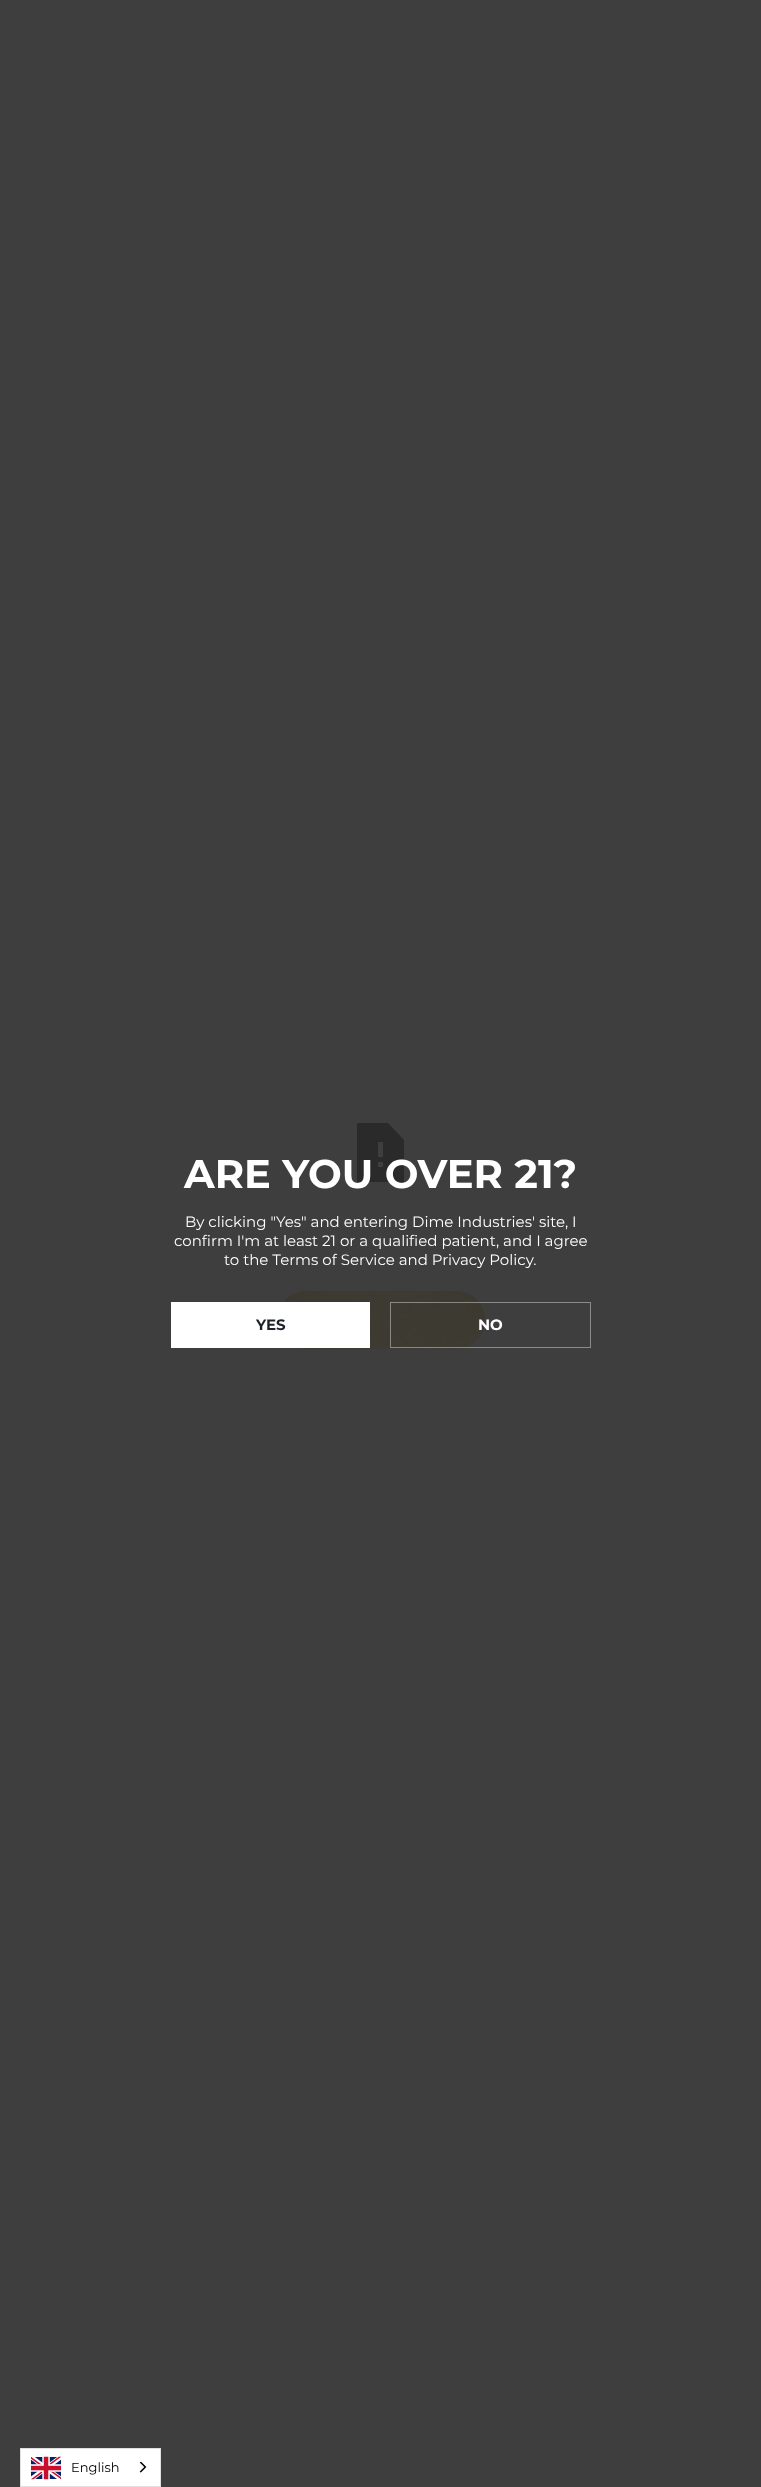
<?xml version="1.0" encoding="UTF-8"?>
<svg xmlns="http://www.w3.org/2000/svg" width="761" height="2487">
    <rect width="100%" height="100%" fill="#3E3E3E"/>
    <path d="M 357 1123 H 388 L 404 1140 V 1182 H 357 Z M 378 1142 H 383 V 1157 H 378 Z M 378 1162 H 383 V 1167 H 378 Z" fill="#2A2A2A" fill-rule="evenodd"/>
    <image x="283" y="1291" width="202" height="58" href="img_01.png"/>
    <text x="184" y="1188" font-family="Montserrat" font-size="40" font-weight="700" fill="#FFFFFF">ARE YOU OVER 21?</text>
    <text x="185" y="1227" font-family="Montserrat" font-size="15" fill="#FFFFFF">By clicking "Yes" and entering Dime Industries' site, I</text>
    <text x="174" y="1246" font-family="Montserrat" font-size="15" fill="#FFFFFF">confirm I'm at least 21 or a qualified patient, and I agree</text>
    <text x="224" y="1265" font-family="Montserrat" font-size="15" fill="#FFFFFF">to the Terms of Service and Privacy Policy.</text>
    <rect x="171" y="1302" width="199" height="46" fill="#FFFFFF"/>
    <text x="256" y="1330" font-family="Montserrat" font-size="15" font-weight="700" fill="#1D2129">YES</text>
    <rect x="390.5" y="1302.5" width="200" height="45" fill="none" stroke="#FFFFFF" stroke-opacity="0.4"/>
    <text x="478" y="1330" font-family="Montserrat" font-size="15" font-weight="700" fill="#FFFFFF">NO</text>
    <rect x="20.5" y="2448.5" width="140" height="38" fill="#FFFFFF" stroke="#E0E0E0"/>
    <image x="31" y="2456" width="30" height="24" href="img_02.png"/>
    <text x="71" y="2472" font-family="Montserrat" font-size="13" fill="#000000">English</text>
    <image x="139" y="2462" width="8" height="11" href="img_03.png"/>
</svg>
